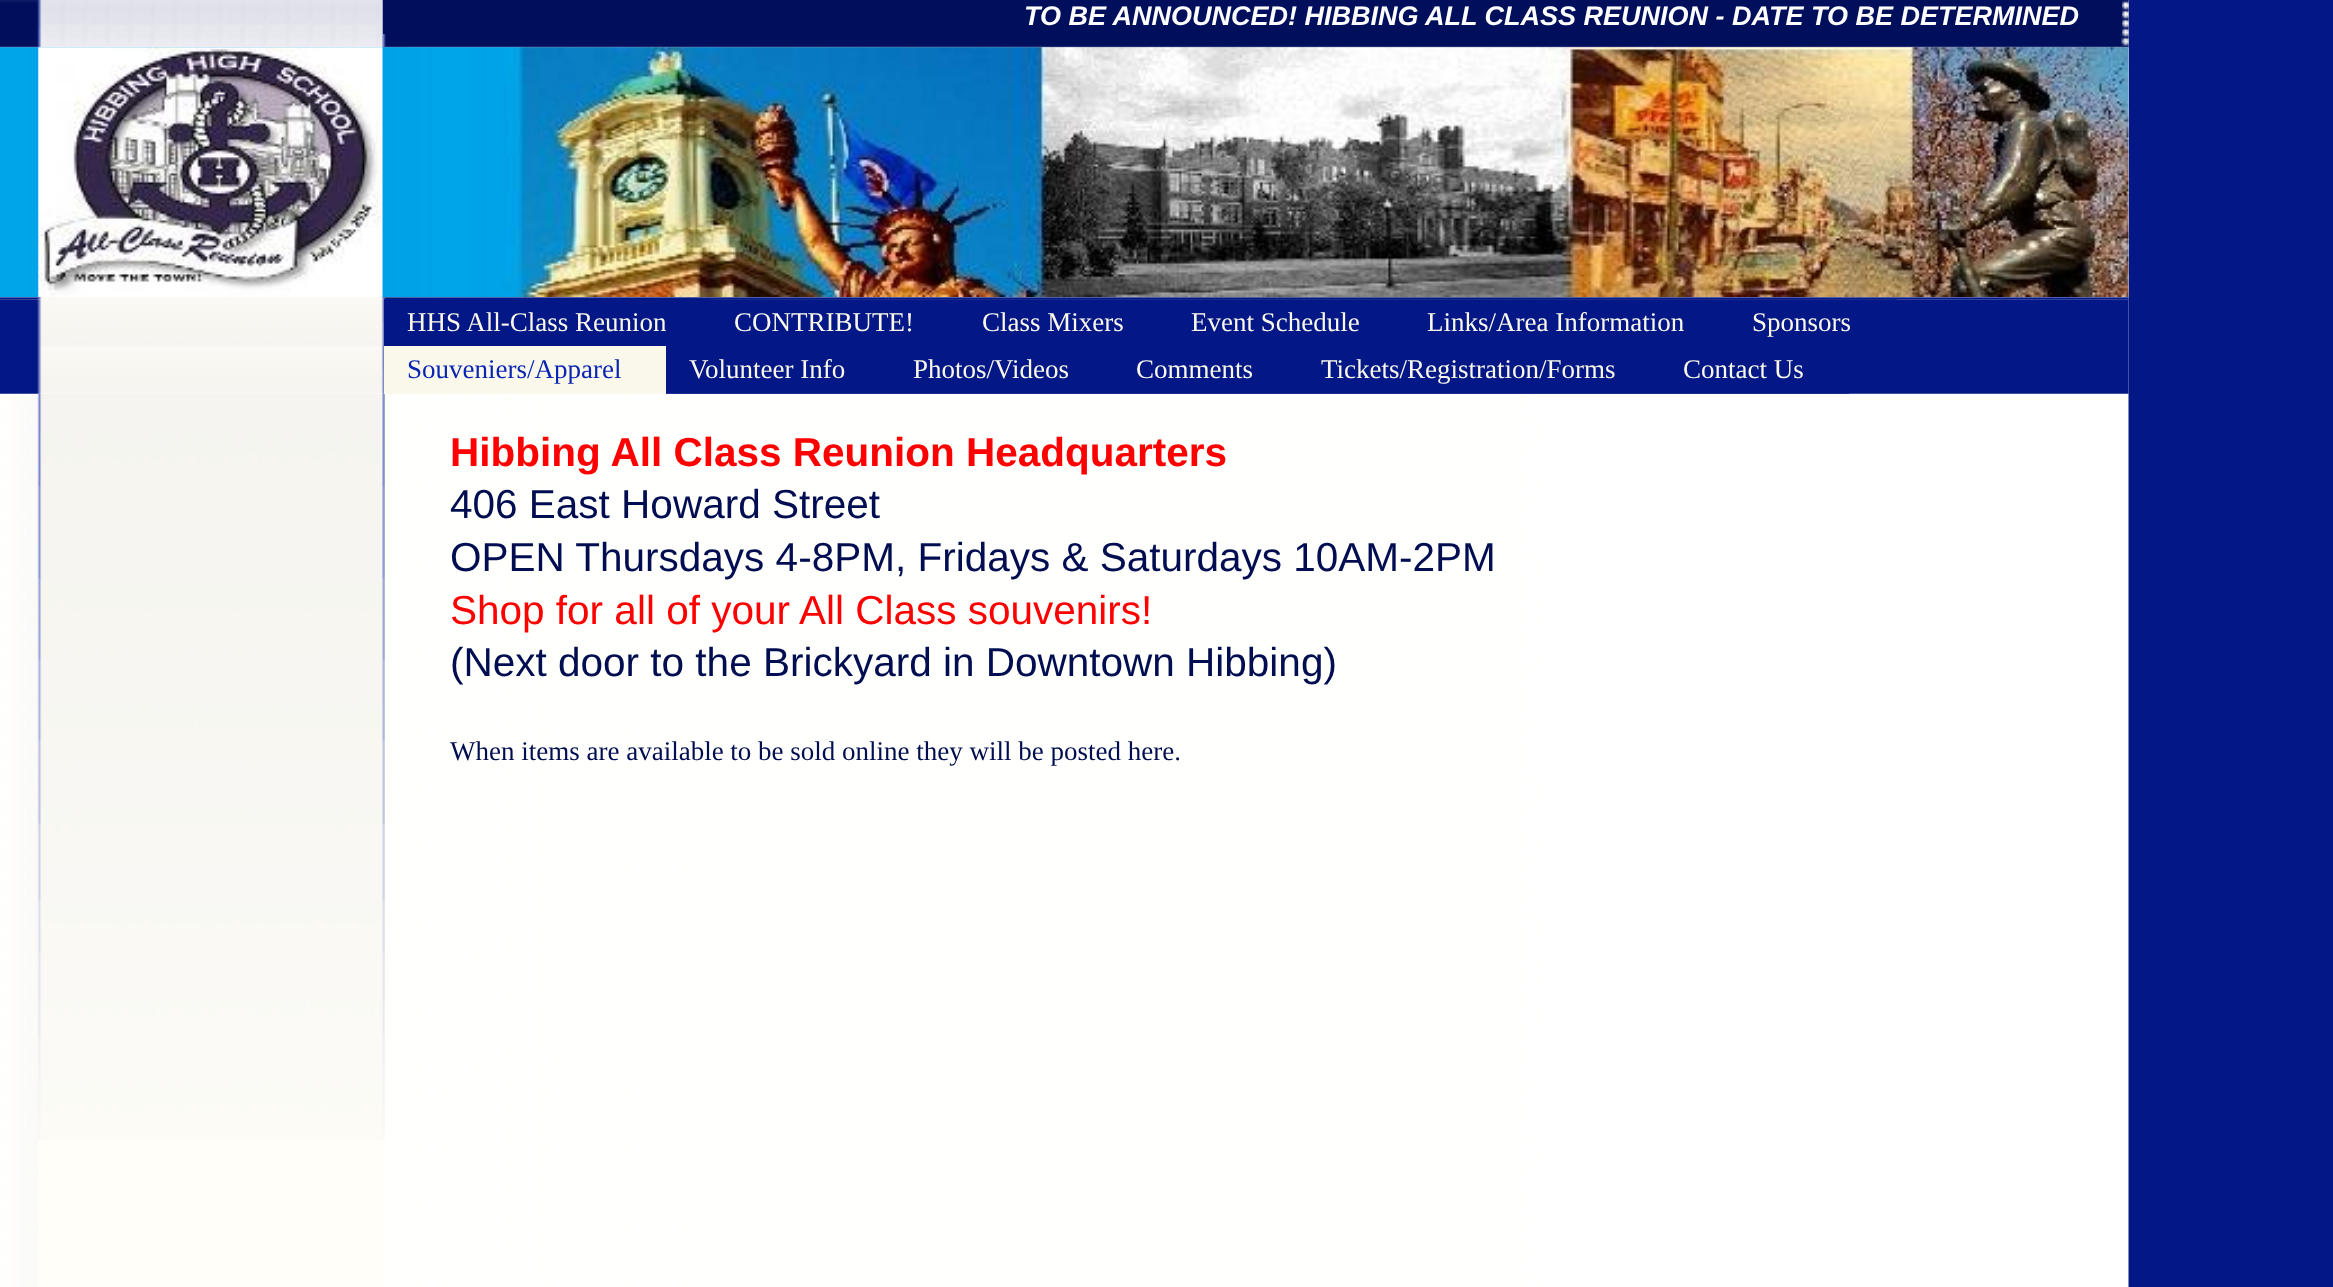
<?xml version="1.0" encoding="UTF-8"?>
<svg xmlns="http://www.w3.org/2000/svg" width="2333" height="1287">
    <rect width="100%" height="100%" fill="#031886"/>
    <image x="0" y="0" width="2129" height="1287" href="img_01.png"/>
    <image x="23" y="393" width="362" height="747" href="img_15.png"/>
    <image x="0" y="299" width="2129" height="95" href="img_05.png"/>
    <rect x="384" y="299" width="327" height="48" fill="#031886"/>
    <image x="711" y="299" width="248" height="1" href="img_06.png"/>
    <image x="958" y="299" width="210" height="1" href="img_07.png"/>
    <image x="1167" y="299" width="237" height="1" href="img_08.png"/>
    <image x="1404" y="299" width="327" height="1" href="img_09.png"/>
    <image x="1730" y="299" width="167" height="1" href="img_10.png"/>
    <image x="0" y="0" width="2129" height="300" href="img_02.png"/>
    <rect x="383" y="0" width="1739" height="34" fill="#000F5C"/>
    <text x="1024" y="25" font-family="Liberation Sans" font-size="27" font-weight="700" font-style="italic" fill="#FFFFFF">TO BE ANNOUNCED! HIBBING ALL CLASS REUNION - DATE TO BE DETERMINED</text>
    <image x="0" y="47" width="2129" height="250" href="img_03.png"/>
    <image x="38" y="47" width="345" height="250" href="img_04.png"/>
    <text x="407" y="331" font-family="Liberation Serif" font-size="27" fill="#FAF8EB">HHS All-Class Reunion</text>
    <text x="734" y="331" font-family="Liberation Serif" font-size="27" fill="#FAF8EB">CONTRIBUTE!</text>
    <text x="982" y="331" font-family="Liberation Serif" font-size="27" fill="#FAF8EB">Class Mixers</text>
    <text x="1191" y="331" font-family="Liberation Serif" font-size="27" fill="#FAF8EB">Event Schedule</text>
    <text x="1427" y="331" font-family="Liberation Serif" font-size="27" fill="#FAF8EB">Links/Area Information</text>
    <text x="1752" y="331" font-family="Liberation Serif" font-size="27" fill="#FAF8EB">Sponsors</text>
    <rect x="384" y="346" width="282" height="48" fill="#FAF8EB"/>
    <text x="407" y="378" font-family="Liberation Serif" font-size="27" fill="#0A25B1">Souveniers/Apparel</text>
    <rect x="666" y="393" width="225" height="1" fill="#1E3192"/>
    <text x="689" y="378" font-family="Liberation Serif" font-size="27" fill="#FAF8EB">Volunteer Info</text>
    <image x="891" y="393" width="223" height="1" href="img_11.png"/>
    <text x="913" y="378" font-family="Liberation Serif" font-size="27" fill="#FAF8EB">Photos/Videos</text>
    <image x="1113" y="393" width="186" height="1" href="img_12.png"/>
    <text x="1136" y="378" font-family="Liberation Serif" font-size="27" fill="#FAF8EB">Comments</text>
    <image x="1298" y="393" width="363" height="1" href="img_13.png"/>
    <text x="1321" y="378" font-family="Liberation Serif" font-size="27" fill="#FAF8EB">Tickets/Registration/Forms</text>
    <image x="1660" y="393" width="190" height="1" href="img_14.png"/>
    <text x="1683" y="378" font-family="Liberation Serif" font-size="27" fill="#FAF8EB">Contact Us</text>
    <text x="450" y="466" font-family="Liberation Sans" font-size="40.5" font-weight="700" fill="#FF0000">Hibbing All Class Reunion Headquarters</text>
    <text font-family="Liberation Sans" font-size="40.5" fill="#010D51">
        <tspan x="450" y="518">406 East Howard Street</tspan>
        <tspan x="450" y="571">OPEN Thursdays 4-8PM, Fridays &amp; Saturdays 10AM-2PM</tspan>
    </text>
    <text x="450" y="624" font-family="Liberation Sans" font-size="40.5" fill="#FF0000">Shop for all of your All Class souvenirs!</text>
    <text x="450" y="676" font-family="Liberation Sans" font-size="40.5" fill="#010D51">(Next door to the Brickyard in Downtown Hibbing)</text>
    <text x="450" y="760" font-family="Liberation Serif" font-size="27" fill="#010D51">When items are available to be sold online they will be posted here.</text>
</svg>
